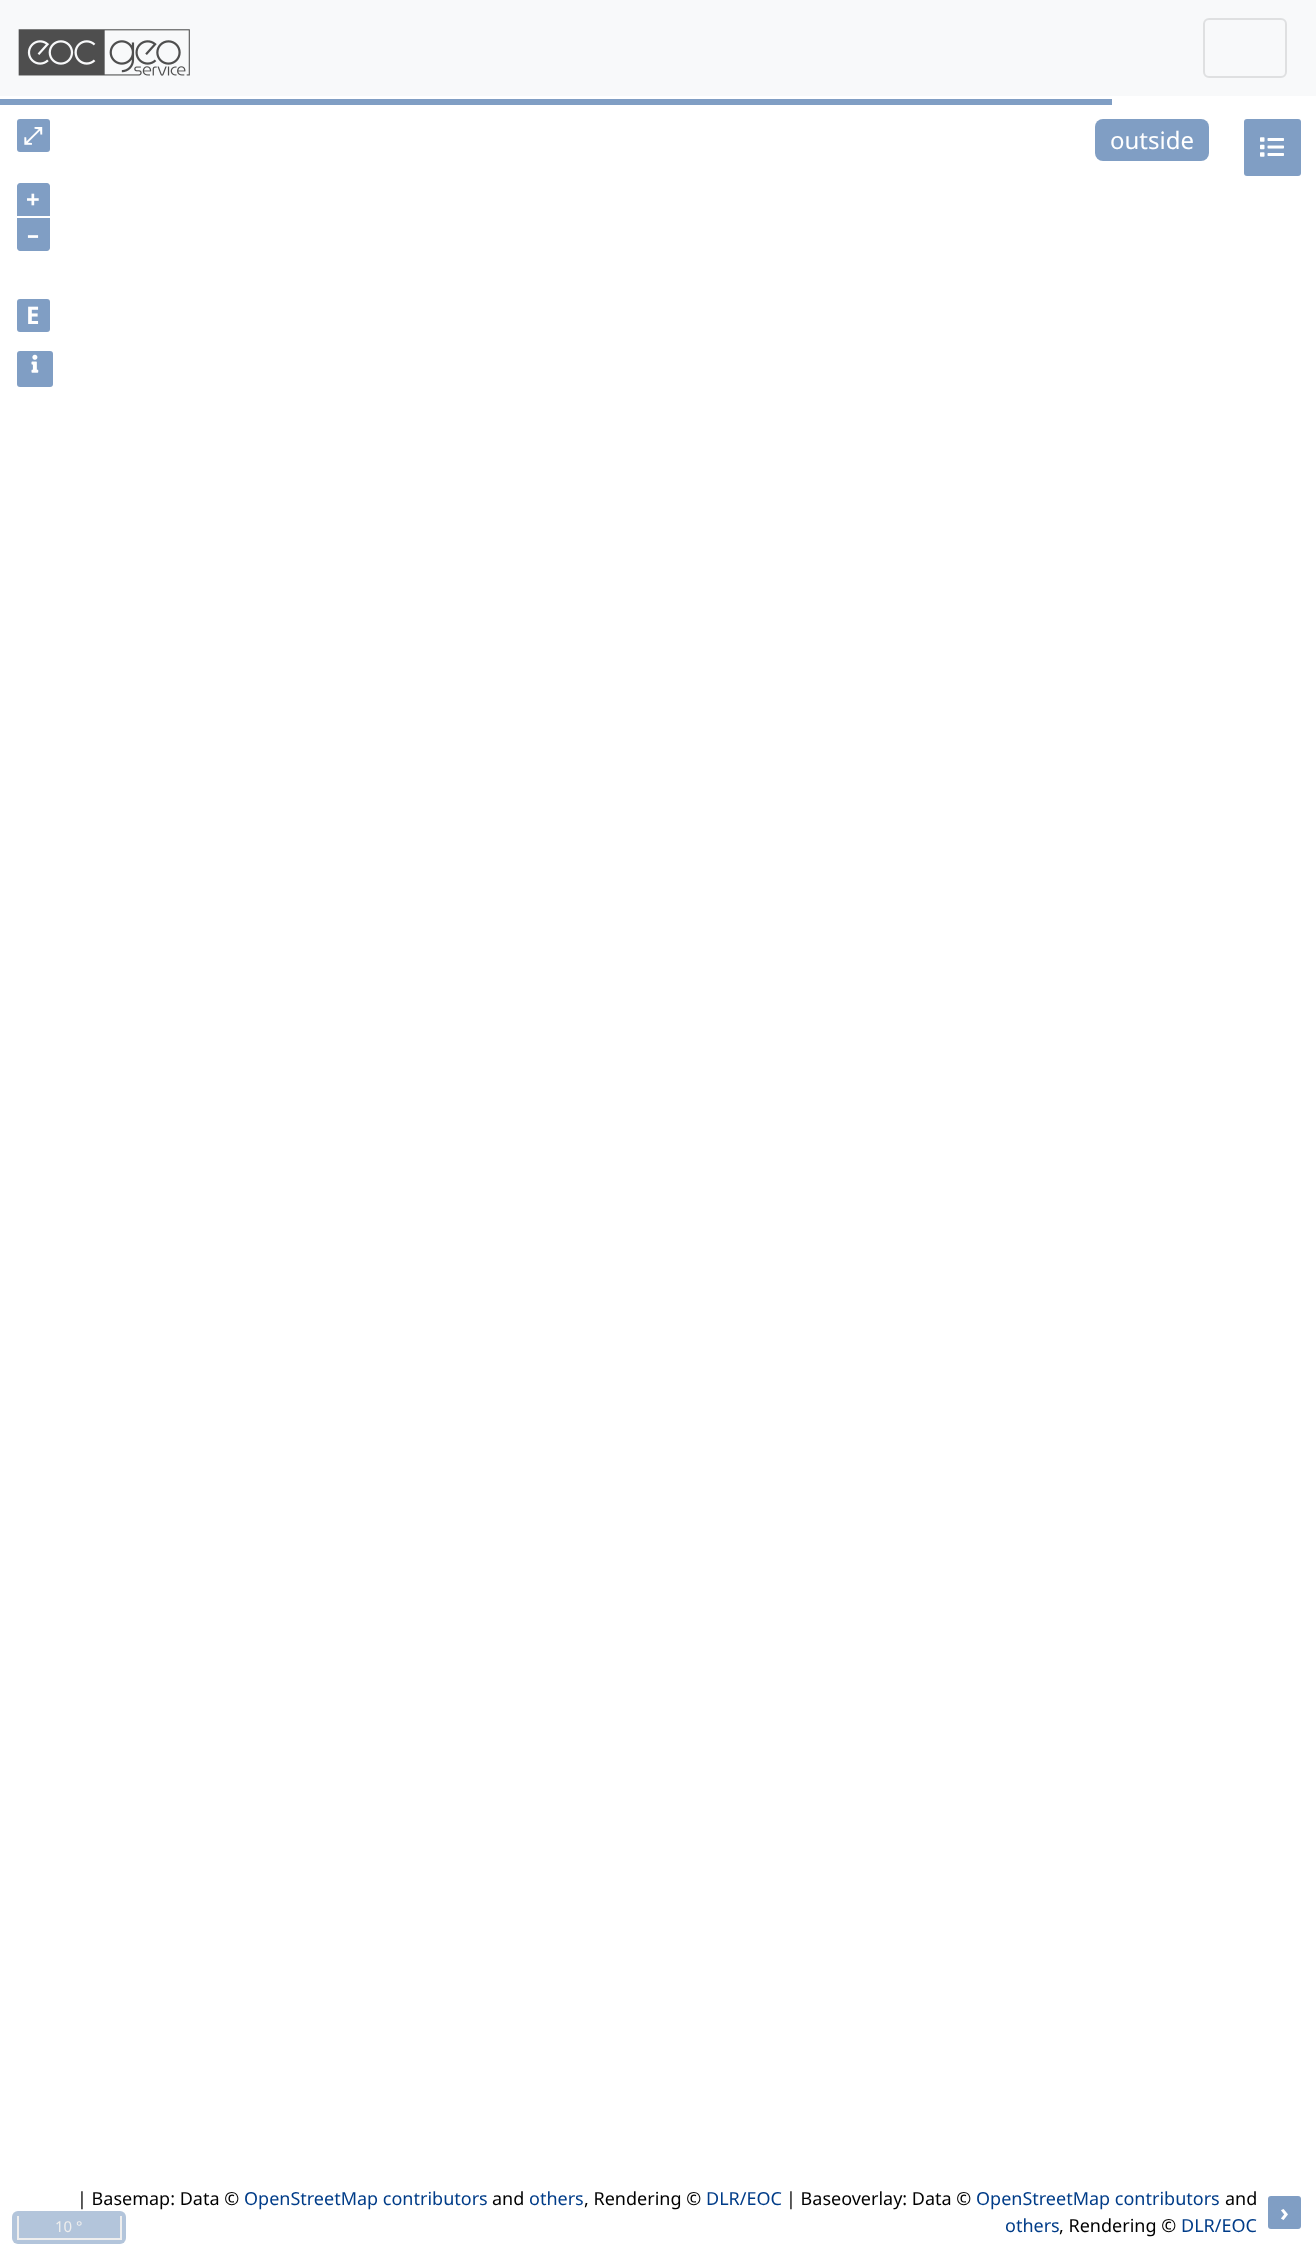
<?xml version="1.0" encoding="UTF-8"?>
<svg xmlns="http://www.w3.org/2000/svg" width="1316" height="2255">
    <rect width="100%" height="100%" fill="#FFFFFF"/>
    <rect x="0" y="0" width="1316" height="96" fill="#F8F9FA"/>
    <image x="18" y="29" width="172" height="47" href="img_01.png"/>
    <rect x="1204" y="19" width="82" height="58" rx="5" fill="none" stroke="#DFE0E1" stroke-width="2"/>
    <rect x="0" y="99" width="1112" height="6" fill="#809EC4"/>
    <rect x="17" y="119" width="33" height="33" rx="3" fill="#809EC4"/>
    <text x="23" y="144" font-family="FreeSerif" font-size="24" font-weight="700" fill="#FFFFFF">⤢</text>
    <rect x="1095" y="119" width="114" height="42" rx="8" fill="#809EC4"/>
    <text x="1110" y="149" font-family="Noto Sans" font-size="24" fill="#FFFFFF">outside</text>
    <rect x="1244" y="119" width="57" height="57" rx="3" fill="#809EC4"/>
    <image x="1260" y="137" width="24" height="20" href="img_02.png"/>
    <path d="M 20 183 H 47 C 48.5 183 50 184.5 50 186 V 216 H 17 V 186 C 17 184.5 18.5 183 20 183 Z" fill="#809EC4"/>
    <text x="26" y="208" font-family="Noto Sans" font-size="24" font-weight="700" fill="#FFFFFF">+</text>
    <path d="M 17 218 H 50 V 248 C 50 249.5 48.5 251 47 251 H 20 C 18.5 251 17 249.5 17 248 Z" fill="#809EC4"/>
    <text x="27" y="243" font-family="Noto Sans" font-size="24" font-weight="700" fill="#FFFFFF">–</text>
    <rect x="17" y="299" width="33" height="33" rx="3" fill="#809EC4"/>
    <text x="26" y="324" font-family="Noto Sans" font-size="24" font-weight="700" fill="#FFFFFF">E</text>
    <rect x="17" y="351" width="36" height="36" rx="3" fill="#809EC4"/>
    <image x="31" y="354" width="8" height="19" href="img_03.png"/>
    <rect x="12" y="2211" width="114" height="33" rx="6" fill="#B3C5DB"/>
    <rect x="120" y="2216" width="2" height="24" fill="#EEEEEE"/>
    <rect x="17" y="2238" width="105" height="2" fill="#EEEEEE"/>
    <rect x="17" y="2216" width="2" height="24" fill="#EEEEEE"/>
    <text x="55" y="2232" font-family="Noto Sans" font-size="15" fill="#EEEEEE">10 °</text>
    <text x="77" y="2205" font-family="Noto Sans" font-size="18" fill="#000000">| Basemap: Data ©</text>
    <text x="244" y="2205" font-family="Noto Sans" font-size="18" fill="#003C88">OpenStreetMap contributors</text>
    <text x="492" y="2205" font-family="Noto Sans" font-size="18" fill="#000000">and</text>
    <text x="529" y="2205" font-family="Noto Sans" font-size="18" fill="#003C88">others</text>
    <text x="584" y="2205" font-family="Noto Sans" font-size="18" fill="#000000">, Rendering ©</text>
    <text x="706" y="2205" font-family="Noto Sans" font-size="18" fill="#003C88">DLR/EOC</text>
    <text x="786" y="2205" font-family="Noto Sans" font-size="18" fill="#000000">| Baseoverlay: Data ©</text>
    <text x="976" y="2205" font-family="Noto Sans" font-size="18" fill="#003C88">OpenStreetMap contributors</text>
    <text x="1225" y="2205" font-family="Noto Sans" font-size="18" fill="#000000">and</text>
    <text x="1005" y="2232" font-family="Noto Sans" font-size="18" fill="#003C88">others</text>
    <text x="1059" y="2232" font-family="Noto Sans" font-size="18" fill="#000000">, Rendering ©</text>
    <text x="1181" y="2232" font-family="Noto Sans" font-size="18" fill="#003C88">DLR/EOC</text>
    <rect x="1268" y="2196" width="33" height="33" rx="3" fill="#809EC4"/>
    <text x="1280" y="2221" font-family="Noto Sans" font-size="24" font-weight="700" fill="#FFFFFF">›</text>
</svg>
